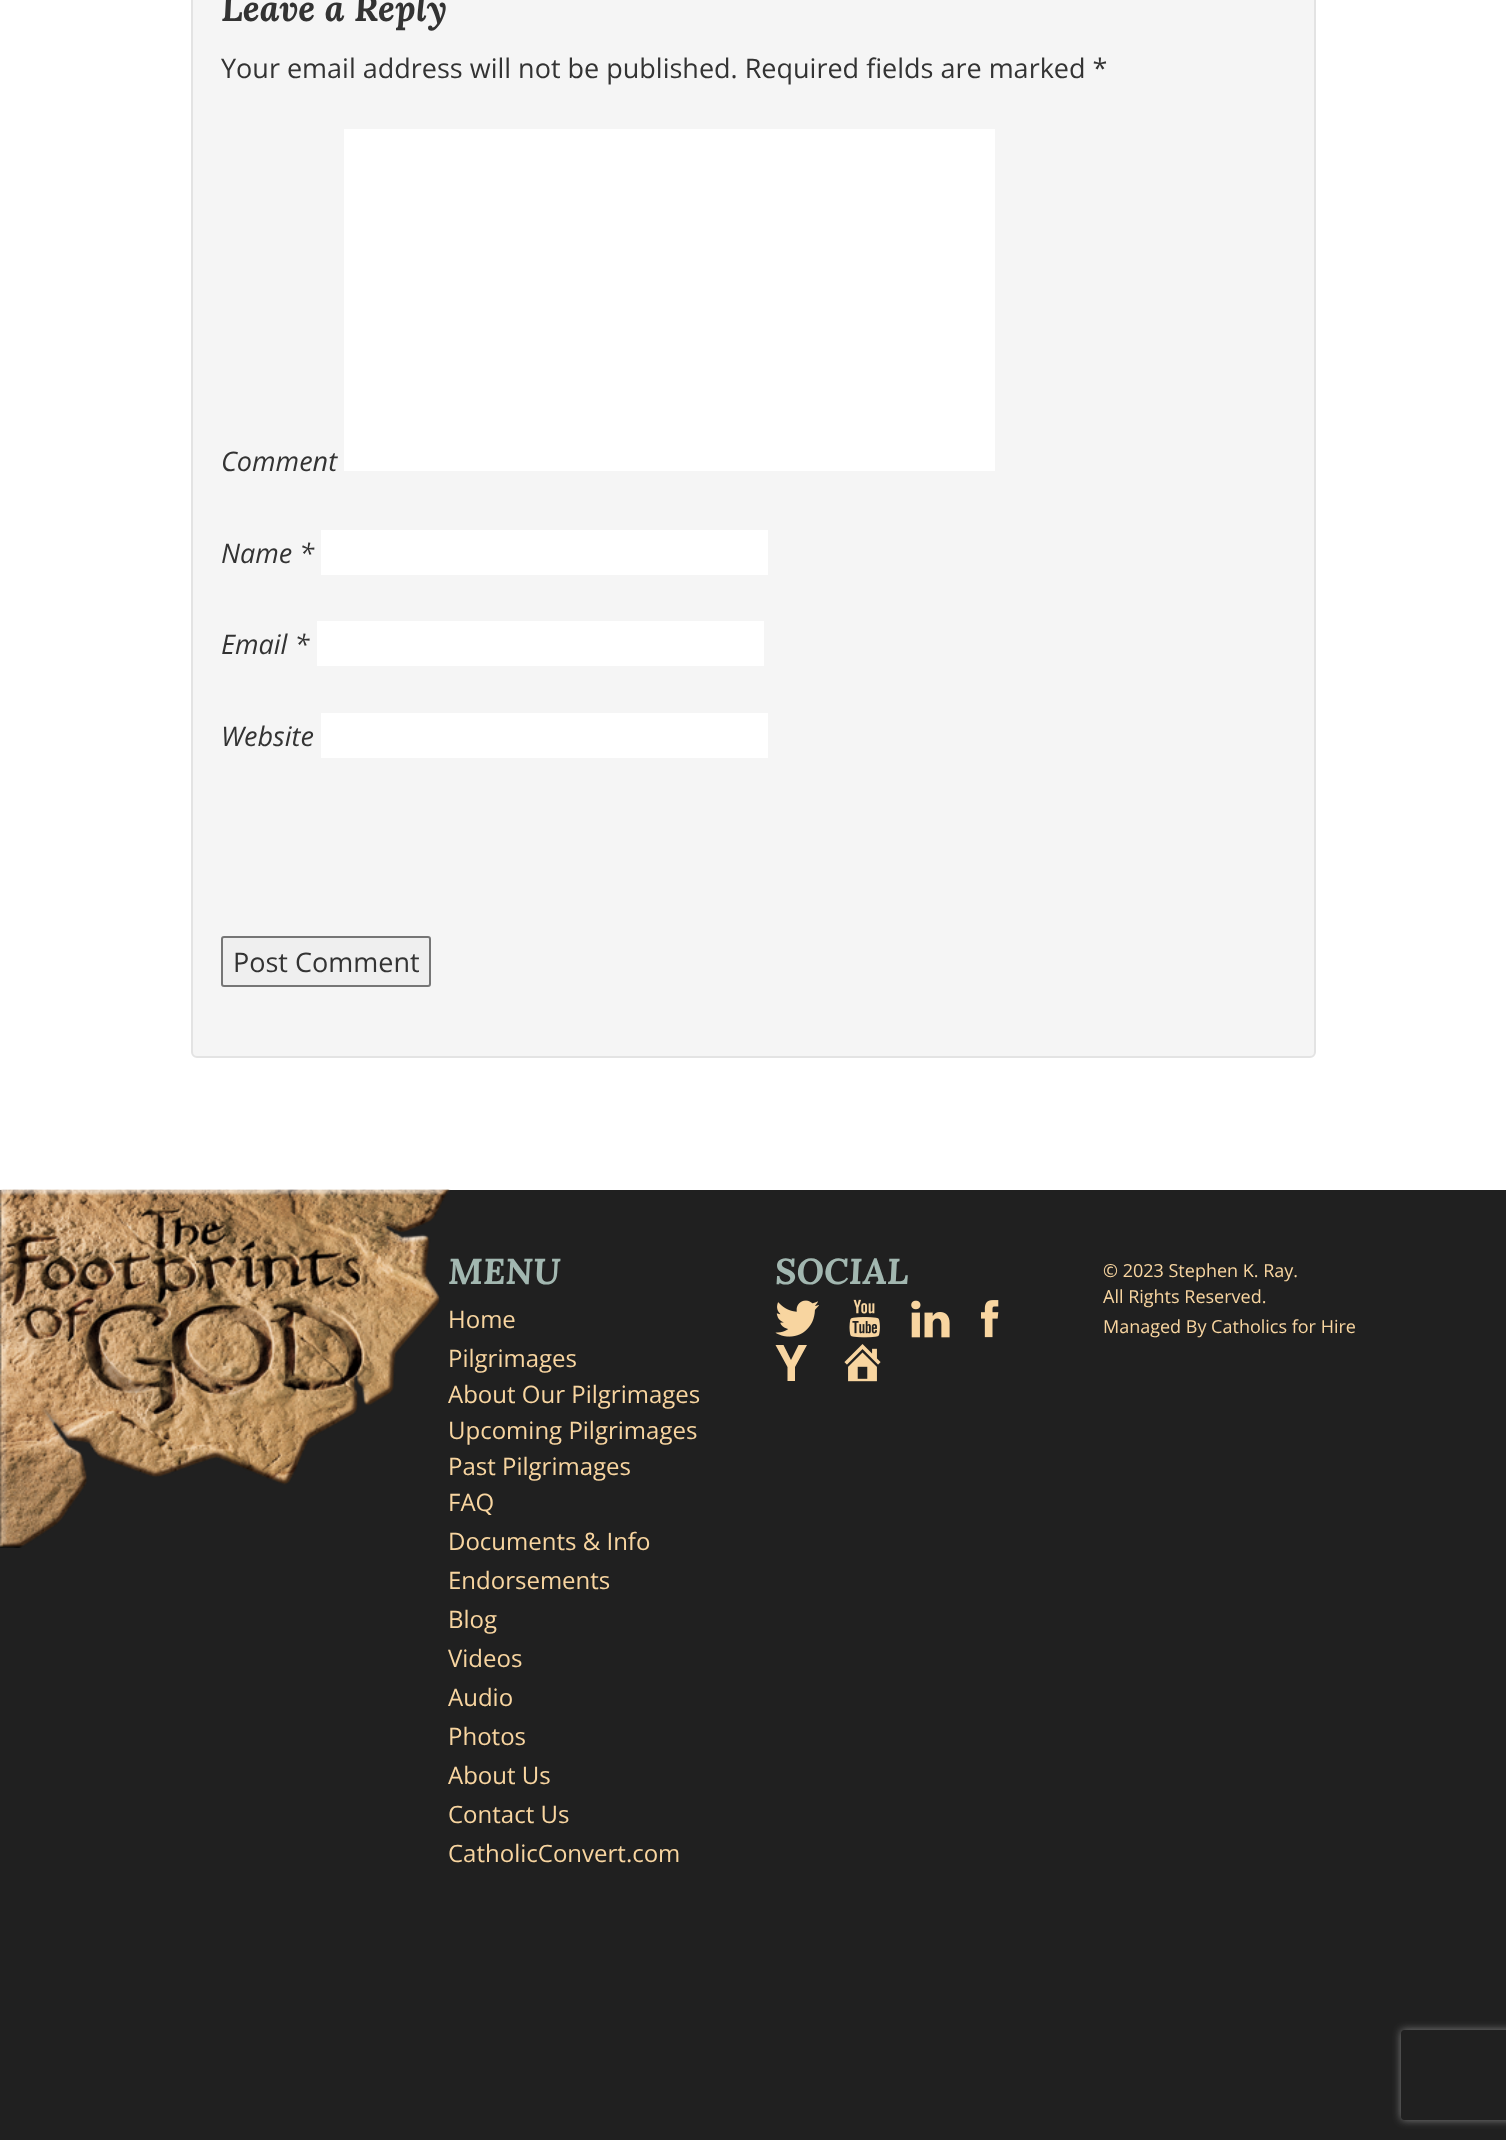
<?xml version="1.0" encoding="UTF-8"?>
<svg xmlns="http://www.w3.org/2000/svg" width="1506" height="2140">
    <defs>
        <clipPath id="clip1"><path d="M 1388 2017 H 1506 V 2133 H 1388 Z M 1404 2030 H 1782 C 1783.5 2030 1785 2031.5 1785 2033 V 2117 C 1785 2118.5 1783.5 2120 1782 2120 H 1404 C 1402.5 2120 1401 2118.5 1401 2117 V 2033 C 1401 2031.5 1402.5 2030 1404 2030 Z" clip-rule="evenodd"/></clipPath>
        <filter id="blur1" x="-50%" y="-200%" width="200%" height="500%"><feGaussianBlur stdDeviation="4"/></filter>
    </defs>
    <rect width="100%" height="100%" fill="#FFFFFF"/>
    <rect x="192" y="-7" width="1123" height="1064" rx="5" fill="#F5F5F5" stroke="#E3E3E3" stroke-width="2"/>
    <text x="221" y="21" font-family="Lora" font-size="36" font-weight="700" font-style="italic" fill="#333333">Leave a Reply</text>
    <text x="221" y="78" font-family="Open Sans" font-size="27" fill="#333333">Your email address will not be published. Required fields are marked *</text>
    <text x="221" y="471" font-family="Open Sans" font-size="27" font-style="italic" fill="#333333">Comment</text>
    <rect x="344" y="129" width="651" height="342" fill="#FFFFFF"/>
    <text x="221" y="563" font-family="Open Sans" font-size="27" font-style="italic" fill="#333333">Name *</text>
    <rect x="321" y="530" width="447" height="45" fill="#FFFFFF"/>
    <text x="221" y="654" font-family="Open Sans" font-size="27" font-style="italic" fill="#333333">Email *</text>
    <rect x="317" y="621" width="447" height="45" fill="#FFFFFF"/>
    <text x="221" y="746" font-family="Open Sans" font-size="27" font-style="italic" fill="#333333">Website</text>
    <rect x="321" y="713" width="447" height="45" fill="#FFFFFF"/>
    <rect x="222" y="937" width="208" height="49" rx="2" fill="#EFEFEF" stroke="#767676" stroke-width="2"/>
    <text x="233" y="972" font-family="Open Sans" font-size="27" fill="#333333">Post Comment</text>
    <rect x="0" y="1190" width="1506" height="950" fill="#202020"/>
    <image x="0" y="1189" width="451" height="359" href="img_01.png"/>
    <text x="448" y="1284" font-family="Lora" font-size="36" font-weight="700" font-style="italic" fill="#A2B7B0">MENU</text>
    <text font-family="Open Sans" font-size="24" fill="#F8D5A0">
        <tspan x="448" y="1328">Home</tspan>
        <tspan x="448" y="1367">Pilgrimages</tspan>
        <tspan x="448" y="1403">About Our Pilgrimages</tspan>
        <tspan x="448" y="1439">Upcoming Pilgrimages</tspan>
        <tspan x="448" y="1475">Past Pilgrimages</tspan>
        <tspan x="448" y="1511">FAQ</tspan>
        <tspan x="448" y="1550">Documents &amp; Info</tspan>
        <tspan x="448" y="1589">Endorsements</tspan>
        <tspan x="448" y="1628">Blog</tspan>
        <tspan x="448" y="1667">Videos</tspan>
        <tspan x="448" y="1706">Audio</tspan>
        <tspan x="448" y="1745">Photos</tspan>
        <tspan x="448" y="1784">About Us</tspan>
        <tspan x="448" y="1823">Contact Us</tspan>
        <tspan x="448" y="1862">CatholicConvert.com</tspan>
    </text>
    <text x="775" y="1284" font-family="Lora" font-size="36" font-weight="700" font-style="italic" fill="#A2B7B0">SOCIAL</text>
    <image x="775" y="1300" width="44" height="37" href="img_02.png"/>
    <image x="849" y="1299" width="31" height="39" href="img_03.png"/>
    <image x="911" y="1300" width="39" height="38" href="img_04.png"/>
    <image x="981" y="1300" width="18" height="38" href="img_05.png"/>
    <path d="M 791 1360 L 798.5 1345 H 807 L 795 1367 V 1381 H 787.5 V 1367 L 775.5 1345 H 783.5 Z" fill="#F8D5A0"/>
    <image x="844" y="1344" width="37" height="38" href="img_06.png"/>
    <text font-family="Open Sans" font-size="18" fill="#F8D5A0">
        <tspan x="1103" y="1277">© 2023 Stephen K. Ray.</tspan>
        <tspan x="1103" y="1303">All Rights Reserved.</tspan>
        <tspan x="1103" y="1333">Managed By Catholics for Hire</tspan>
    </text>
    <g clip-path="url(#clip1)">
        <rect x="1401" y="2030" width="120" height="90" rx="3" fill="#808080" filter="url(#blur1)"/>
    </g>
</svg>
